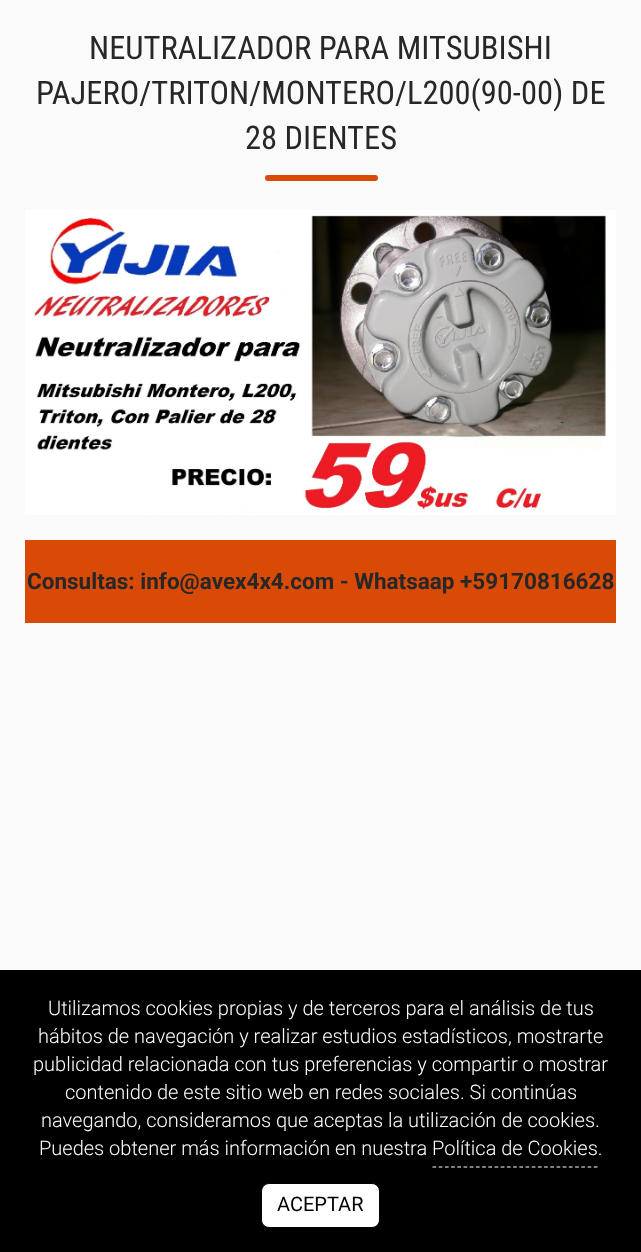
<?xml version="1.0" encoding="UTF-8"?>
<svg xmlns="http://www.w3.org/2000/svg" width="641" height="1252">
    <rect width="100%" height="100%" fill="#FAFAFA"/>
    <text x="89" y="59" font-family="Roboto Condensed" font-size="32.5" fill="#272727">NEUTRALIZADOR PARA MITSUBISHI</text>
    <text x="36" y="104" font-family="Roboto Condensed" font-size="32.5" fill="#272727">PAJERO/TRITON/MONTERO/L200(90-00) DE</text>
    <text x="245" y="149" font-family="Roboto Condensed" font-size="32.5" fill="#272727">28 DIENTES</text>
    <rect x="265" y="175" width="113" height="6" rx="3" fill="#D84A05"/>
    <image x="25" y="210" width="591" height="305" href="img_01.png"/>
    <rect x="25" y="540" width="591" height="83" fill="#D84A05"/>
    <text x="27" y="589" font-family="Roboto" font-size="22.5" font-weight="700" fill="#272727">Consultas: info@avex4x4.com - Whatsaap +59170816628</text>
    <rect x="0" y="970" width="641" height="282" fill="#000000"/>
    <text x="48" y="1015" font-family="Roboto" font-size="20" font-weight="300" fill="#FFFFFF">Utilizamos cookies propias y de terceros para el análisis de tus</text>
    <text x="38" y="1043" font-family="Roboto" font-size="20" font-weight="300" fill="#FFFFFF">hábitos de navegación y realizar estudios estadísticos, mostrarte</text>
    <text x="33" y="1071" font-family="Roboto" font-size="20" font-weight="300" fill="#FFFFFF">publicidad relacionada con tus preferencias y compartir o mostrar</text>
    <text x="65" y="1099" font-family="Roboto" font-size="20" font-weight="300" fill="#FFFFFF">contenido de este sitio web en redes sociales. Si continúas</text>
    <text x="41" y="1127" font-family="Roboto" font-size="20" font-weight="300" fill="#FFFFFF">navegando, consideramos que aceptas la utilización de cookies.</text>
    <text x="39" y="1155" font-family="Roboto" font-size="20" font-weight="300" fill="#FFFFFF">Puedes obtener más información en nuestra Política de Cookies.</text>
    <path d="M 432.5 1167 H 597.5" fill="none" stroke="#FFFFFF" stroke-width="1.2" stroke-dasharray="3.75 2.45"/>
    <rect x="261.5" y="1183.5" width="118" height="44" rx="7.5" fill="#FFFFFF" stroke="#000000"/>
    <text x="277" y="1211" font-family="Roboto" font-size="20" fill="#000000">ACEPTAR</text>
</svg>
